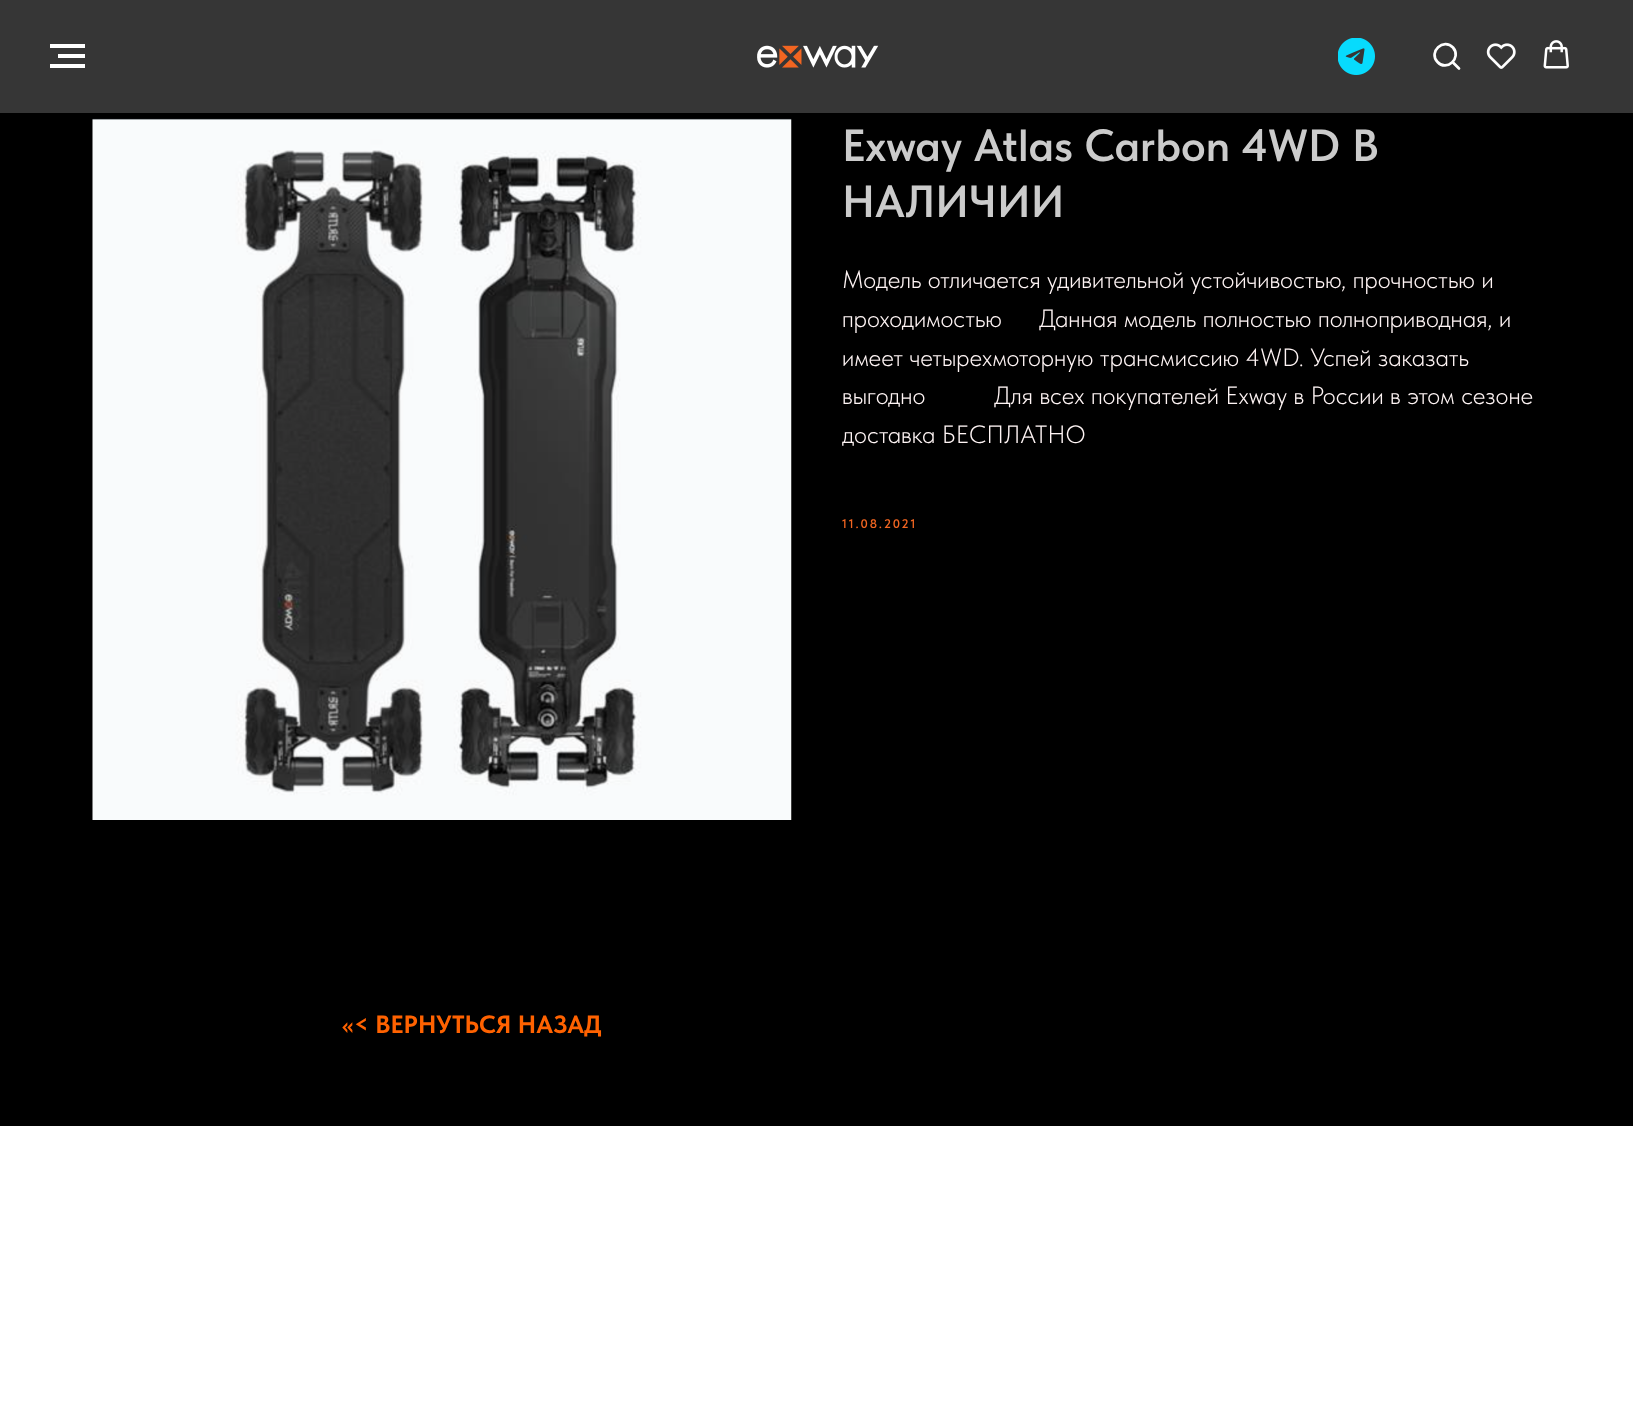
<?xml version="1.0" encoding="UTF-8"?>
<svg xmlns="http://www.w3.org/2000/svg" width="1633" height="1412">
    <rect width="100%" height="100%" fill="#FFFFFF"/>
    <rect x="0" y="0" width="1633" height="113" fill="#363636"/>
    <rect x="50" y="44" width="35" height="4" fill="#FFFFFF"/>
    <rect x="58" y="54" width="27" height="4" fill="#FFFFFF"/>
    <rect x="50" y="64" width="35" height="4" fill="#FFFFFF"/>
    <image x="757" y="45" width="122" height="23" href="img_01.png"/>
    <image x="1338" y="38" width="37" height="37" href="img_02.png"/>
    <path d="M 1453 47.5 C 1462 58 1446.5 72 1437.5 62 C 1428 52 1443.5 37.5 1453 47.5 Z" fill="none" stroke="#FFFFFF" stroke-width="2.7"/>
    <path d="M 1453.5 63 L 1459 68.5" fill="none" stroke="#FFFFFF" stroke-width="2.7" stroke-linecap="round"/>
    <image x="1486" y="43" width="30" height="26" href="img_03.png"/>
    <image x="1543" y="40" width="26" height="29" href="img_04.png"/>
    <rect x="0" y="113" width="1633" height="1013" fill="#000000"/>
    <image x="92" y="118" width="700" height="702" href="img_05.png"/>
    <text font-family="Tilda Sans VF" font-size="45" font-weight="600" fill="#CBCBCB">
        <tspan x="842" y="161">Exway Atlas Carbon 4WD В</tspan>
        <tspan x="842" y="217">НАЛИЧИИ</tspan>
    </text>
    <text font-family="Tilda Sans VF" font-size="25" font-weight="300" fill="#FFF5F5">
        <tspan x="842" y="288">Модель отличается удивительной устойчивостью, прочностью и</tspan>
        <tspan x="842" y="327">проходимостью</tspan>
    </text>
    <text x="1039" y="327" font-family="Tilda Sans VF" font-size="25" font-weight="300" fill="#FFF5F5">Данная модель полностью полноприводная, и</text>
    <text font-family="Tilda Sans VF" font-size="25" font-weight="300" fill="#FFF5F5">
        <tspan x="842" y="366">имеет четырехмоторную трансмиссию 4WD. Успей заказать</tspan>
        <tspan x="842" y="404">выгодно</tspan>
    </text>
    <text x="994" y="404" font-family="Tilda Sans VF" font-size="25" font-weight="300" fill="#FFF5F5">Для всех покупателей Exway в России в этом сезоне</text>
    <text x="842" y="443" font-family="Tilda Sans VF" font-size="25" font-weight="300" fill="#FFF5F5">доставка БЕСПЛАТНО</text>
    <text x="842" y="528" font-family="Tilda Sans VF" font-size="12.5" font-weight="600" letter-spacing="1.9" fill="#F26521">11.08.2021</text>
    <text x="342" y="1033" font-family="Tilda Sans VF" font-size="25" font-weight="700" fill="#FF6200">&lt;&lt;&lt; ВЕРНУТЬСЯ НАЗАД</text>
</svg>
